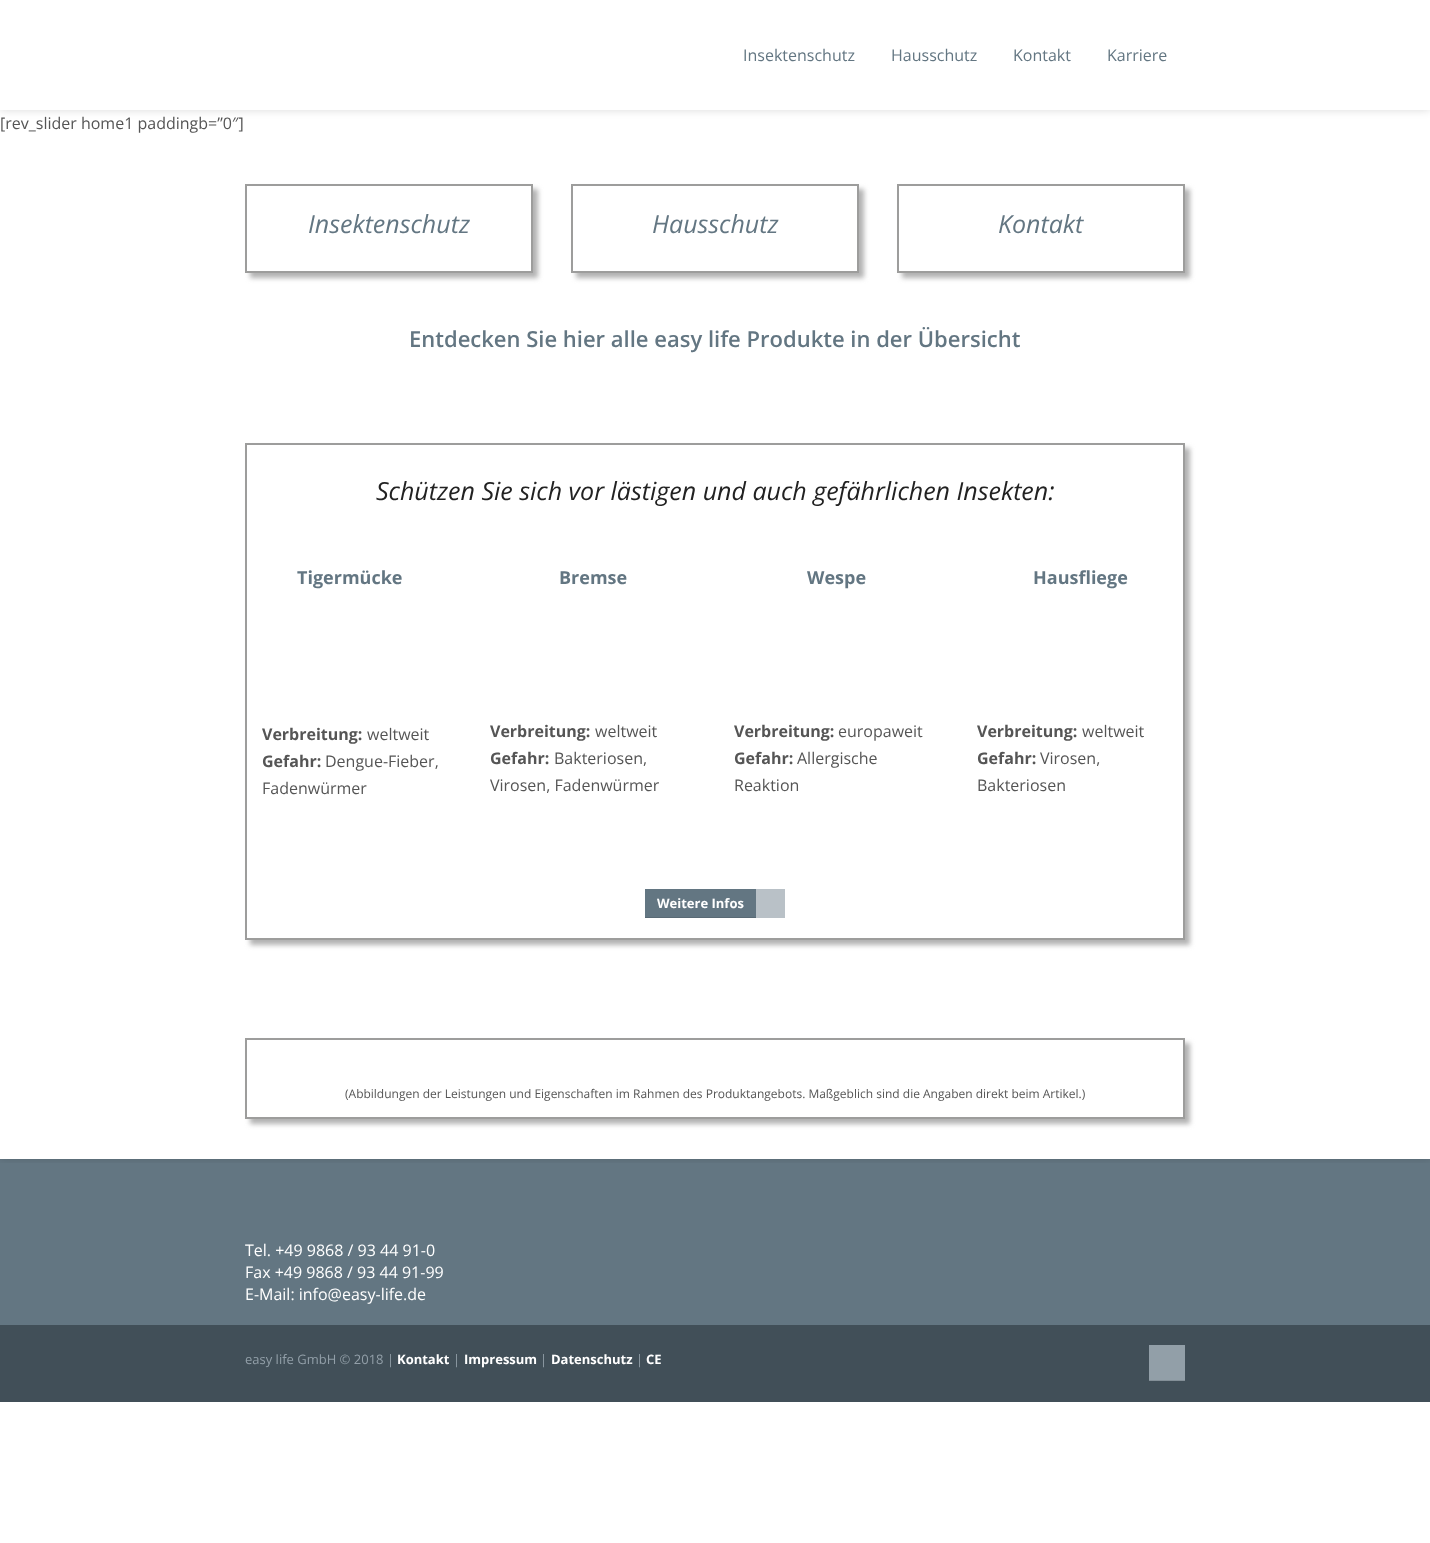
<?xml version="1.0" encoding="UTF-8"?>
<svg xmlns="http://www.w3.org/2000/svg" width="1430" height="1543">
    <defs>
        <filter id="blur1" x="-50%" y="-200%" width="200%" height="500%"><feGaussianBlur stdDeviation="4"/></filter>
        <clipPath id="clip1"><rect x="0" y="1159" width="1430" height="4"/></clipPath>
        <clipPath id="clip2"><path d="M 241 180 H 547 V 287 H 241 Z M 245 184 H 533 V 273 H 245 Z" clip-rule="evenodd"/></clipPath>
        <filter id="blur2" x="-50%" y="-200%" width="200%" height="500%"><feGaussianBlur stdDeviation="2.5"/></filter>
        <clipPath id="clip3"><path d="M 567 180 H 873 V 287 H 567 Z M 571 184 H 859 V 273 H 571 Z" clip-rule="evenodd"/></clipPath>
        <clipPath id="clip4"><path d="M 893 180 H 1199 V 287 H 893 Z M 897 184 H 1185 V 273 H 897 Z" clip-rule="evenodd"/></clipPath>
        <clipPath id="clip5"><path d="M 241 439 H 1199 V 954 H 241 Z M 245 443 H 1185 V 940 H 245 Z" clip-rule="evenodd"/></clipPath>
        <clipPath id="clip6"><path d="M 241 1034 H 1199 V 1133 H 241 Z M 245 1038 H 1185 V 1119 H 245 Z" clip-rule="evenodd"/></clipPath>
    </defs>
    <rect width="100%" height="100%" fill="#FFFFFF"/>
    <rect x="0" y="0" width="1430" height="110" fill="#000000" fill-opacity="0.15" filter="url(#blur1)"/>
    <rect x="0" y="1159" width="1430" height="166" fill="#637682"/>
    <g clip-path="url(#clip1)">
        <rect x="0" y="110" width="1430" height="1049" fill="#000000" fill-opacity="0.15" filter="url(#blur1)"/>
    </g>
    <rect x="0" y="0" width="1430" height="110" fill="#FFFFFF"/>
    <text x="743" y="61" font-family="Open Sans" font-size="16" fill="#637682">Insektenschutz</text>
    <text x="891" y="61" font-family="Open Sans" font-size="16" fill="#637682">Hausschutz</text>
    <text x="1013" y="61" font-family="Open Sans" font-size="16" fill="#637682">Kontakt</text>
    <text x="1107" y="61" font-family="Open Sans" font-size="16" fill="#637682">Karriere</text>
    <text x="0" y="129" font-family="Open Sans" font-size="16" fill="#555555">[rev_slider home1 paddingb=”0″]</text>
    <g clip-path="url(#clip2)">
        <rect x="250" y="189" width="288" height="89" fill="#B2B2B2" filter="url(#blur2)"/>
    </g>
    <rect x="246" y="185" width="286" height="87" fill="none" stroke="#9D9D9C" stroke-width="2"/>
    <text x="308" y="233" font-family="Open Sans" font-size="25" font-style="italic" fill="#637682">Insektenschutz</text>
    <g clip-path="url(#clip3)">
        <rect x="576" y="189" width="288" height="89" fill="#B2B2B2" filter="url(#blur2)"/>
    </g>
    <rect x="572" y="185" width="286" height="87" fill="none" stroke="#9D9D9C" stroke-width="2"/>
    <text x="652" y="233" font-family="Open Sans" font-size="25" font-style="italic" fill="#637682">Hausschutz</text>
    <g clip-path="url(#clip4)">
        <rect x="902" y="189" width="288" height="89" fill="#B2B2B2" filter="url(#blur2)"/>
    </g>
    <rect x="898" y="185" width="286" height="87" fill="none" stroke="#9D9D9C" stroke-width="2"/>
    <text x="998" y="233" font-family="Open Sans" font-size="25" font-style="italic" fill="#637682">Kontakt</text>
    <text x="409" y="347" font-family="Open Sans" font-size="22" font-weight="600" fill="#637682">Entdecken Sie hier alle easy life Produkte in der Übersicht</text>
    <g clip-path="url(#clip5)">
        <rect x="250" y="448" width="940" height="497" fill="#B2B2B2" filter="url(#blur2)"/>
    </g>
    <rect x="246" y="444" width="938" height="495" fill="none" stroke="#9D9D9C" stroke-width="2"/>
    <text x="376" y="500" font-family="Open Sans" font-size="25" font-style="italic" fill="#222222">Schützen Sie sich vor lästigen und auch gefährlichen Insekten:</text>
    <text x="297" y="584" font-family="Open Sans" font-size="18" font-weight="700" fill="#637682">Tigermücke</text>
    <text x="262" y="740" font-family="Open Sans" font-size="16" font-weight="700" fill="#555555">Verbreitung:</text>
    <text x="367" y="740" font-family="Open Sans" font-size="16" fill="#555555">weltweit</text>
    <text x="262" y="767" font-family="Open Sans" font-size="16" font-weight="700" fill="#555555">Gefahr:</text>
    <text x="325" y="767" font-family="Open Sans" font-size="16" fill="#555555">Dengue-Fieber,</text>
    <text x="262" y="794" font-family="Open Sans" font-size="16" fill="#555555">Fadenwürmer</text>
    <text x="559" y="584" font-family="Open Sans" font-size="18" font-weight="700" fill="#637682">Bremse</text>
    <text x="490" y="737" font-family="Open Sans" font-size="16" font-weight="700" fill="#555555">Verbreitung:</text>
    <text x="595" y="737" font-family="Open Sans" font-size="16" fill="#555555">weltweit</text>
    <text x="490" y="764" font-family="Open Sans" font-size="16" font-weight="700" fill="#555555">Gefahr:</text>
    <text x="554" y="764" font-family="Open Sans" font-size="16" fill="#555555">Bakteriosen,</text>
    <text x="490" y="791" font-family="Open Sans" font-size="16" fill="#555555">Virosen, Fadenwürmer</text>
    <text x="807" y="584" font-family="Open Sans" font-size="18" font-weight="700" fill="#637682">Wespe</text>
    <text x="734" y="737" font-family="Open Sans" font-size="16" font-weight="700" fill="#555555">Verbreitung:</text>
    <text x="838" y="737" font-family="Open Sans" font-size="16" fill="#555555">europaweit</text>
    <text x="734" y="764" font-family="Open Sans" font-size="16" font-weight="700" fill="#555555">Gefahr:</text>
    <text x="797" y="764" font-family="Open Sans" font-size="16" fill="#555555">Allergische</text>
    <text x="734" y="791" font-family="Open Sans" font-size="16" fill="#555555">Reaktion</text>
    <text x="1033" y="584" font-family="Open Sans" font-size="18" font-weight="700" fill="#637682">Hausfliege</text>
    <text x="977" y="737" font-family="Open Sans" font-size="16" font-weight="700" fill="#555555">Verbreitung:</text>
    <text x="1082" y="737" font-family="Open Sans" font-size="16" fill="#555555">weltweit</text>
    <text x="977" y="764" font-family="Open Sans" font-size="16" font-weight="700" fill="#555555">Gefahr:</text>
    <text x="1040" y="764" font-family="Open Sans" font-size="16" fill="#555555">Virosen,</text>
    <text x="977" y="791" font-family="Open Sans" font-size="16" fill="#555555">Bakteriosen</text>
    <rect x="645" y="889" width="111" height="28" fill="#637682"/>
    <rect x="645" y="917" width="111" height="1" fill="#596A75"/>
    <text x="657" y="908" font-family="Open Sans" font-size="13" font-weight="700" fill="#FFFFFF">Weitere Infos</text>
    <rect x="756" y="889" width="29" height="29" fill="#B9C1C7"/>
    <g clip-path="url(#clip6)">
        <rect x="250" y="1043" width="940" height="81" fill="#B2B2B2" filter="url(#blur2)"/>
    </g>
    <rect x="246" y="1039" width="938" height="79" fill="none" stroke="#9D9D9C" stroke-width="2"/>
    <text x="345" y="1098" font-family="Open Sans" font-size="12" fill="#555555">(Abbildungen der Leistungen und Eigenschaften im Rahmen des Produktangebots. Maßgeblich sind die Angaben direkt beim Artikel.)</text>
    <text font-family="Open Sans" font-size="16" fill="#FFFFFF">
        <tspan x="245" y="1256">Tel. +49 9868 / 93 44 91-0</tspan>
        <tspan x="245" y="1278">Fax +49 9868 / 93 44 91-99</tspan>
        <tspan x="245" y="1300">E-Mail: info@easy-life.de</tspan>
    </text>
    <rect x="0" y="1325" width="1430" height="77" fill="#414F58"/>
    <text x="245" y="1364" font-family="Open Sans" font-size="13" fill="#929FA8">easy life GmbH © 2018 |</text>
    <text x="397" y="1364" font-family="Open Sans" font-size="13" font-weight="700" fill="#FFFFFF">Kontakt</text>
    <text x="453" y="1364" font-family="Open Sans" font-size="13" fill="#929FA8">|</text>
    <text x="464" y="1364" font-family="Open Sans" font-size="13" font-weight="700" fill="#FFFFFF">Impressum</text>
    <text x="540" y="1364" font-family="Open Sans" font-size="13" fill="#929FA8">|</text>
    <text x="551" y="1364" font-family="Open Sans" font-size="13" font-weight="700" fill="#FFFFFF">Datenschutz</text>
    <text x="636" y="1364" font-family="Open Sans" font-size="13" fill="#929FA8">|</text>
    <text x="646" y="1364" font-family="Open Sans" font-size="13" font-weight="700" fill="#FFFFFF">CE</text>
    <rect x="1149" y="1345" width="36" height="35" fill="#929FA8"/>
    <rect x="1149" y="1380" width="36" height="1" fill="#838F97"/>
</svg>
